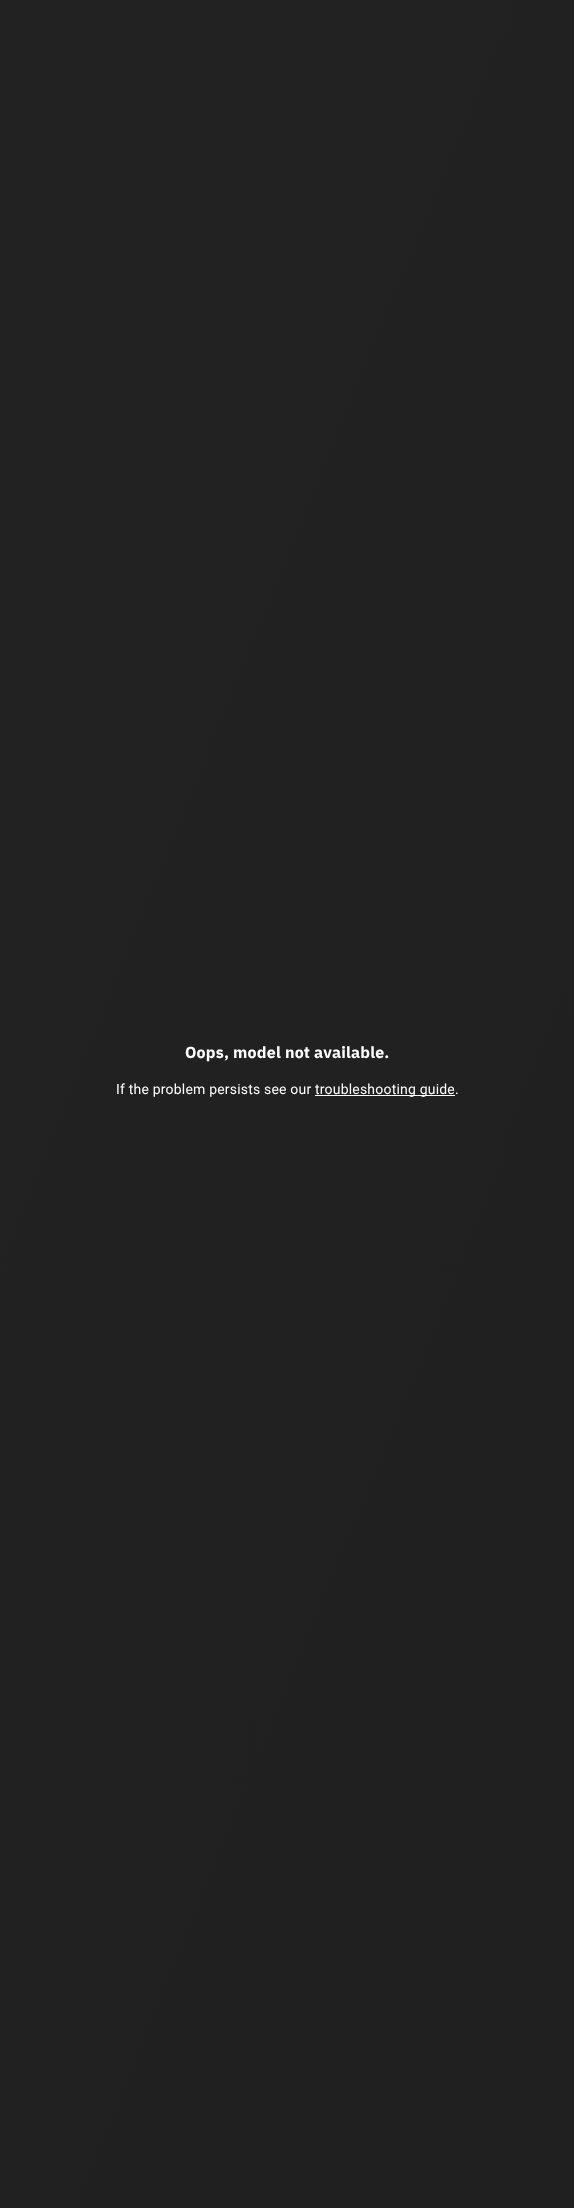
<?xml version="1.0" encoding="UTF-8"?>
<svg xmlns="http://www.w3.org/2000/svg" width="574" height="2208">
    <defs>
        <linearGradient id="g1" gradientUnits="userSpaceOnUse" x1="-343" y1="849" x2="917" y2="1359"><stop offset="0" stop-color="#222222"/><stop offset="1" stop-color="#202020"/></linearGradient>
    </defs>
    <rect width="100%" height="100%" fill="#FFFFFF"/>
    <rect x="0" y="0" width="574" height="2208" fill="url(#g1)"/>
    <text x="185" y="1058" font-family="IBM Plex Sans" font-size="16" font-weight="700" letter-spacing="0.2" fill="#FFFFFF">Oops, model not available.</text>
    <text x="116" y="1094" font-family="Roboto" font-size="14" letter-spacing="0.2" fill="#FFFFFF">If the problem persists see our</text>
    <rect x="315" y="1095" width="140" height="1" fill="#FFFFFF"/>
    <text x="315" y="1094" font-family="Roboto" font-size="14" letter-spacing="0.2" fill="#FFFFFF">troubleshooting guide.</text>
</svg>
